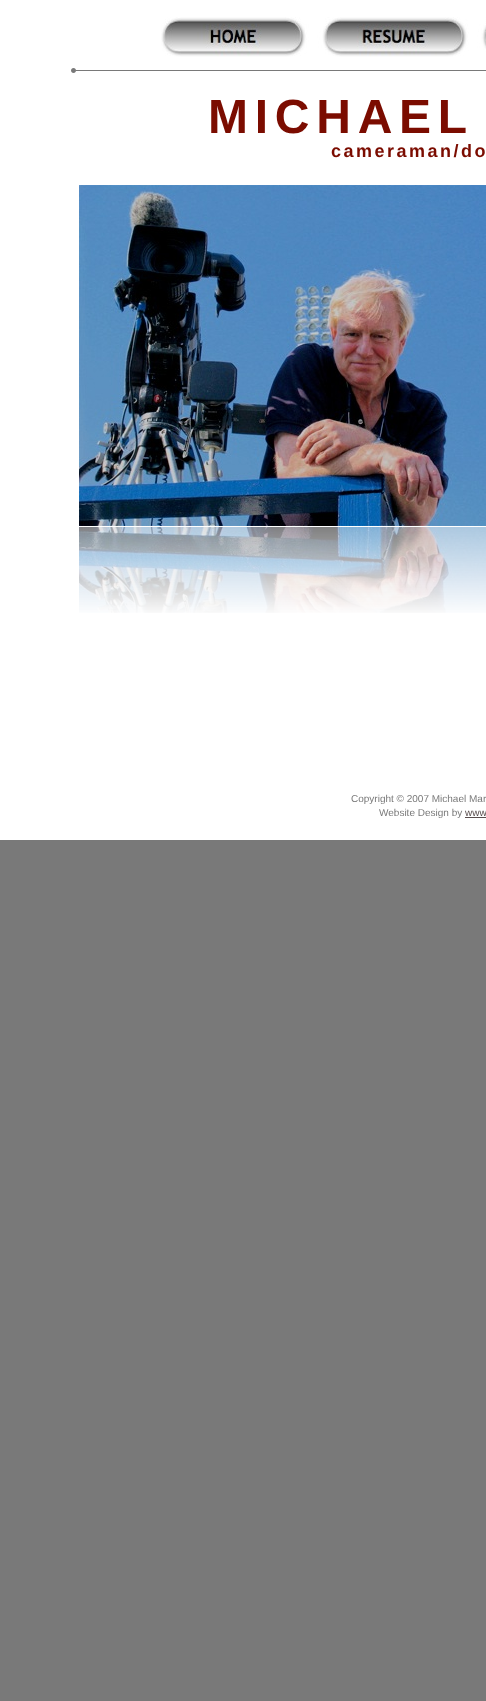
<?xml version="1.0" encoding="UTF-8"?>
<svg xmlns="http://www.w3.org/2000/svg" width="486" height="1701">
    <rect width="100%" height="100%" fill="#797979"/>
    <rect x="0" y="0" width="486" height="840" fill="#FFFFFF"/>
    <image x="161" y="17" width="325" height="40" href="img_01.png"/>
    <image x="71" y="68" width="415" height="5" href="img_02.png"/>
    <text x="208" y="133" font-family="Liberation Sans" font-size="48" font-weight="700" letter-spacing="6.75" fill="#7B0C00">MICHAEL</text>
    <text x="331" y="157" font-family="Liberation Sans" font-size="18" font-weight="700" letter-spacing="2.5" fill="#7B0C00">cameraman/do</text>
    <image x="79" y="185" width="407" height="341" href="img_03.png"/>
    <image x="79" y="527" width="407" height="86" href="img_04.png"/>
    <text x="351" y="802" font-family="Liberation Sans" font-size="10" fill="#797979">Copyright © 2007 Michael Mar</text>
    <text x="379" y="816" font-family="Liberation Sans" font-size="10" fill="#797979">Website Design by</text>
    <text x="465" y="816" font-family="Liberation Sans" font-size="10" fill="#584D4D">www</text>
    <rect x="465" y="817" width="21" height="1" fill="#584D4D"/>
</svg>
